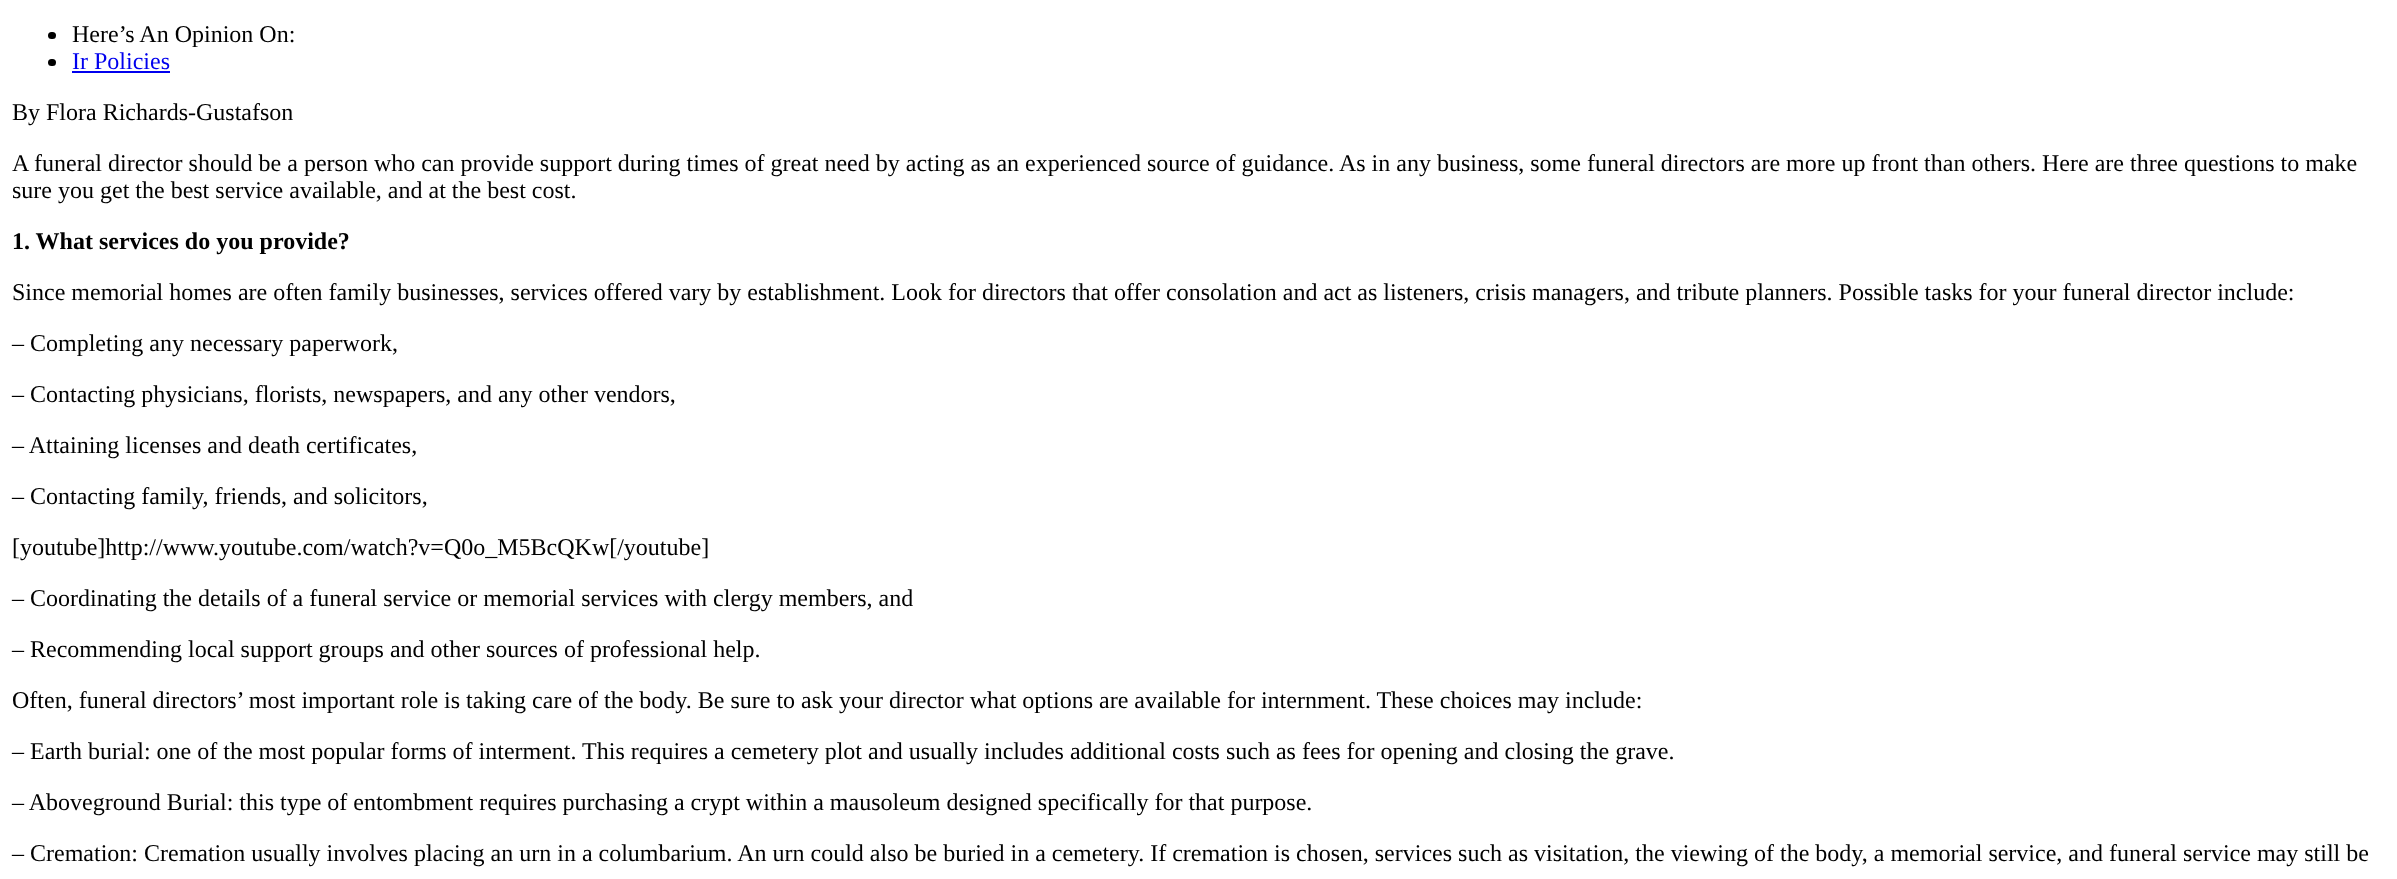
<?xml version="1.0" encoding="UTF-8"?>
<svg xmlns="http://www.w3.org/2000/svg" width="2397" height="879">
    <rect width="100%" height="100%" fill="#FFFFFF"/>
    <rect x="48" y="32" width="8" height="7" rx="3.5" fill="#000000"/>
    <text x="72" y="42" font-family="Liberation Serif" font-size="24" fill="#000000">Here’s An Opinion On:</text>
    <rect x="48" y="59" width="8" height="7" rx="3.5" fill="#000000"/>
    <text x="72" y="69" font-family="Liberation Serif" font-size="24" fill="#0000EE">Ir Policies</text>
    <rect x="72" y="71" width="98" height="2" fill="#0000EE"/>
    <text x="12" y="120" font-family="Liberation Serif" font-size="24" fill="#000000">By Flora Richards-Gustafson</text>
    <text font-family="Liberation Serif" font-size="24" fill="#000000">
        <tspan x="12" y="171">A funeral director should be a person who can provide support during times of great need by acting as an experienced source of guidance. As in any business, some funeral directors are more up front than others. Here are three questions to make</tspan>
        <tspan x="12" y="198">sure you get the best service available, and at the best cost.</tspan>
    </text>
    <text x="12" y="249" font-family="Liberation Serif" font-size="24" font-weight="700" fill="#000000">1. What services do you provide?</text>
    <text x="12" y="300" font-family="Liberation Serif" font-size="24" fill="#000000">Since memorial homes are often family businesses, services offered vary by establishment. Look for directors that offer consolation and act as listeners, crisis managers, and tribute planners. Possible tasks for your funeral director include:</text>
    <text x="12" y="351" font-family="Liberation Serif" font-size="24" fill="#000000">– Completing any necessary paperwork,</text>
    <text x="12" y="402" font-family="Liberation Serif" font-size="24" fill="#000000">– Contacting physicians, florists, newspapers, and any other vendors,</text>
    <text x="12" y="453" font-family="Liberation Serif" font-size="24" fill="#000000">– Attaining licenses and death certificates,</text>
    <text x="12" y="504" font-family="Liberation Serif" font-size="24" fill="#000000">– Contacting family, friends, and solicitors,</text>
    <text x="12" y="555" font-family="Liberation Serif" font-size="24" fill="#000000">[youtube]http://www.youtube.com/watch?v=Q0o_M5BcQKw[/youtube]</text>
    <text x="12" y="606" font-family="Liberation Serif" font-size="24" fill="#000000">– Coordinating the details of a funeral service or memorial services with clergy members, and</text>
    <text x="12" y="657" font-family="Liberation Serif" font-size="24" fill="#000000">– Recommending local support groups and other sources of professional help.</text>
    <text x="12" y="708" font-family="Liberation Serif" font-size="24" fill="#000000">Often, funeral directors’ most important role is taking care of the body. Be sure to ask your director what options are available for internment. These choices may include:</text>
    <text x="12" y="759" font-family="Liberation Serif" font-size="24" fill="#000000">– Earth burial: one of the most popular forms of interment. This requires a cemetery plot and usually includes additional costs such as fees for opening and closing the grave.</text>
    <text x="12" y="810" font-family="Liberation Serif" font-size="24" fill="#000000">– Aboveground Burial: this type of entombment requires purchasing a crypt within a mausoleum designed specifically for that purpose.</text>
    <text x="12" y="861" font-family="Liberation Serif" font-size="24" fill="#000000">– Cremation: Cremation usually involves placing an urn in a columbarium. An urn could also be buried in a cemetery. If cremation is chosen, services such as visitation, the viewing of the body, a memorial service, and funeral service may still be</text>
</svg>
